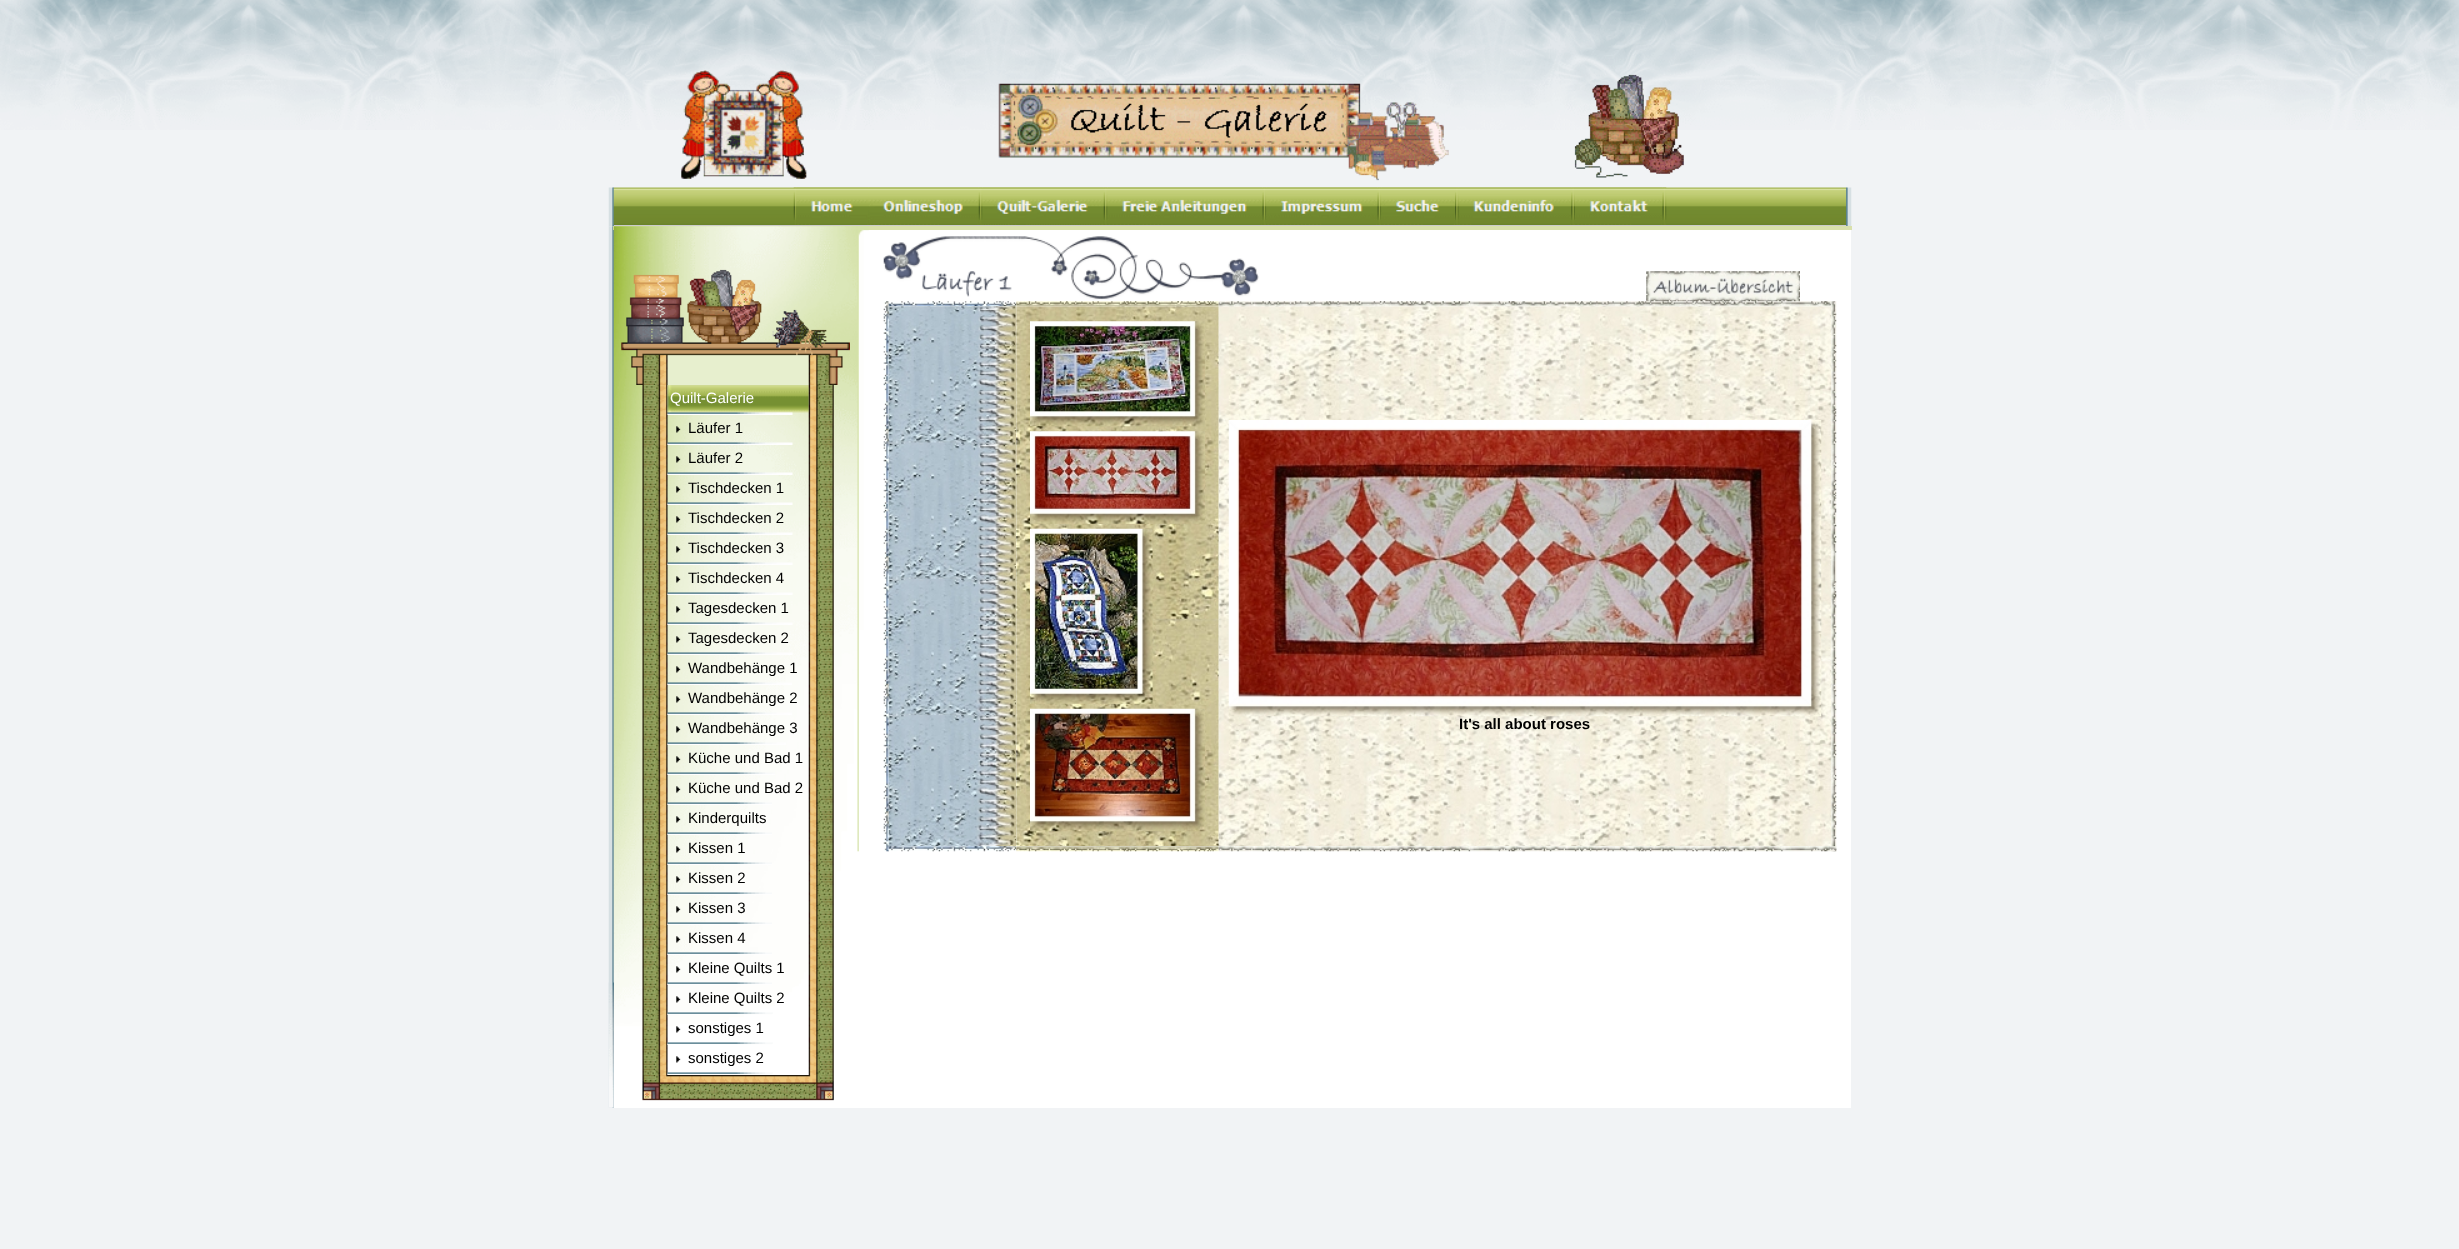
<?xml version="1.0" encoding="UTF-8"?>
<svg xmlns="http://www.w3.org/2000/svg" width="2459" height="1249">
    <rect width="100%" height="100%" fill="#F1F3F5"/>
    <image x="0" y="0" width="2459" height="130" href="img_01.png"/>
    <image x="681" y="70" width="1003" height="111" href="img_02.png"/>
    <image x="608" y="187" width="6" height="40" href="img_03.png"/>
    <image x="613" y="187" width="1234" height="38" href="img_04.png"/>
    <rect x="614" y="225" width="1232" height="1" fill="#CCCCCC"/>
    <image x="793" y="187" width="4" height="38" href="img_05.png"/>
    <image x="796" y="187" width="73" height="38" href="img_06.png"/>
    <image x="868" y="187" width="111" height="38" href="img_07.png"/>
    <image x="978" y="187" width="5" height="38" href="img_08.png"/>
    <image x="982" y="187" width="122" height="38" href="img_09.png"/>
    <image x="1103" y="187" width="5" height="38" href="img_10.png"/>
    <image x="1107" y="187" width="156" height="38" href="img_11.png"/>
    <image x="1262" y="187" width="5" height="38" href="img_12.png"/>
    <image x="1266" y="187" width="112" height="38" href="img_13.png"/>
    <image x="1377" y="187" width="5" height="38" href="img_12.png"/>
    <image x="1381" y="187" width="74" height="38" href="img_14.png"/>
    <image x="1455" y="187" width="4" height="38" href="img_15.png"/>
    <image x="1458" y="187" width="114" height="38" href="img_16.png"/>
    <image x="1571" y="187" width="4" height="38" href="img_17.png"/>
    <image x="1575" y="187" width="88" height="38" href="img_18.png"/>
    <image x="1662" y="187" width="5" height="38" href="img_12.png"/>
    <image x="1846" y="187" width="6" height="39" href="img_19.png"/>
    <image x="608" y="226" width="6" height="882" href="img_20.png"/>
    <rect x="614" y="230" width="1237" height="878" fill="#FFFFFF"/>
    <rect x="613" y="226" width="1239" height="4" fill="#D9E0AB"/>
    <image x="613" y="226" width="256" height="806" href="img_22.png"/>
    <image x="608" y="982" width="6" height="126" href="img_21.png"/>
    <image x="621" y="269" width="229" height="116" href="img_23.png"/>
    <image x="642" y="385" width="26" height="30" href="img_24.png"/>
    <image x="667" y="385" width="142" height="28" href="img_25.png"/>
    <text x="670" y="403" font-family="Liberation Sans" font-size="15" fill="#FFFFFF">Quilt-Galerie</text>
    <image x="808" y="385" width="26" height="30" href="img_26.png"/>
    <image x="667" y="412" width="126" height="3" href="img_27.png"/>
    <image x="642" y="415" width="26" height="660" href="img_28.png"/>
    <image x="676" y="426" width="5" height="7" href="img_29.png"/>
    <text x="688" y="433" font-family="Liberation Sans" font-size="15" fill="#000000">Läufer 1</text>
    <image x="808" y="415" width="26" height="660" href="img_30.png"/>
    <image x="667" y="442" width="126" height="3" href="img_31.png"/>
    <image x="676" y="456" width="5" height="7" href="img_32.png"/>
    <text x="688" y="463" font-family="Liberation Sans" font-size="15" fill="#000000">Läufer 2</text>
    <image x="667" y="472" width="126" height="3" href="img_33.png"/>
    <image x="676" y="486" width="5" height="7" href="img_34.png"/>
    <text x="688" y="493" font-family="Liberation Sans" font-size="15" fill="#000000">Tischdecken 1</text>
    <image x="667" y="502" width="126" height="3" href="img_35.png"/>
    <image x="676" y="516" width="5" height="7" href="img_36.png"/>
    <text x="688" y="523" font-family="Liberation Sans" font-size="15" fill="#000000">Tischdecken 2</text>
    <image x="667" y="532" width="126" height="3" href="img_37.png"/>
    <image x="676" y="546" width="5" height="7" href="img_38.png"/>
    <text x="688" y="553" font-family="Liberation Sans" font-size="15" fill="#000000">Tischdecken 3</text>
    <image x="667" y="562" width="126" height="3" href="img_39.png"/>
    <image x="676" y="576" width="5" height="7" href="img_40.png"/>
    <text x="688" y="583" font-family="Liberation Sans" font-size="15" fill="#000000">Tischdecken 4</text>
    <image x="667" y="592" width="126" height="3" href="img_41.png"/>
    <image x="676" y="606" width="5" height="7" href="img_42.png"/>
    <text x="688" y="613" font-family="Liberation Sans" font-size="15" fill="#000000">Tagesdecken 1</text>
    <image x="667" y="622" width="126" height="3" href="img_43.png"/>
    <image x="676" y="636" width="5" height="7" href="img_44.png"/>
    <text x="688" y="643" font-family="Liberation Sans" font-size="15" fill="#000000">Tagesdecken 2</text>
    <image x="667" y="652" width="126" height="3" href="img_45.png"/>
    <image x="676" y="666" width="5" height="7" href="img_46.png"/>
    <text x="688" y="673" font-family="Liberation Sans" font-size="15" fill="#000000">Wandbehänge 1</text>
    <image x="667" y="682" width="125" height="3" href="img_47.png"/>
    <image x="676" y="696" width="5" height="7" href="img_48.png"/>
    <text x="688" y="703" font-family="Liberation Sans" font-size="15" fill="#000000">Wandbehänge 2</text>
    <image x="667" y="712" width="125" height="3" href="img_49.png"/>
    <image x="676" y="726" width="5" height="7" href="img_50.png"/>
    <text x="688" y="733" font-family="Liberation Sans" font-size="15" fill="#000000">Wandbehänge 3</text>
    <image x="667" y="742" width="119" height="3" href="img_51.png"/>
    <image x="676" y="756" width="5" height="7" href="img_52.png"/>
    <text x="688" y="763" font-family="Liberation Sans" font-size="15" fill="#000000">Küche und Bad 1</text>
    <image x="667" y="772" width="108" height="3" href="img_53.png"/>
    <image x="676" y="786" width="5" height="7" href="img_54.png"/>
    <text x="688" y="793" font-family="Liberation Sans" font-size="15" fill="#000000">Küche und Bad 2</text>
    <image x="667" y="802" width="105" height="3" href="img_55.png"/>
    <image x="676" y="816" width="5" height="7" href="img_56.png"/>
    <text x="688" y="823" font-family="Liberation Sans" font-size="15" fill="#000000">Kinderquilts</text>
    <image x="667" y="832" width="105" height="3" href="img_57.png"/>
    <image x="676" y="846" width="5" height="7" href="img_58.png"/>
    <text x="688" y="853" font-family="Liberation Sans" font-size="15" fill="#000000">Kissen 1</text>
    <image x="667" y="862" width="105" height="3" href="img_59.png"/>
    <image x="676" y="876" width="5" height="7" href="img_60.png"/>
    <text x="688" y="883" font-family="Liberation Sans" font-size="15" fill="#000000">Kissen 2</text>
    <image x="667" y="892" width="105" height="3" href="img_61.png"/>
    <image x="676" y="906" width="5" height="7" href="img_62.png"/>
    <text x="688" y="913" font-family="Liberation Sans" font-size="15" fill="#000000">Kissen 3</text>
    <image x="667" y="922" width="105" height="3" href="img_63.png"/>
    <image x="676" y="936" width="5" height="7" href="img_64.png"/>
    <text x="688" y="943" font-family="Liberation Sans" font-size="15" fill="#000000">Kissen 4</text>
    <image x="667" y="952" width="105" height="3" href="img_65.png"/>
    <image x="676" y="966" width="5" height="7" href="img_66.png"/>
    <text x="688" y="973" font-family="Liberation Sans" font-size="15" fill="#000000">Kleine Quilts 1</text>
    <image x="667" y="982" width="105" height="3" href="img_67.png"/>
    <image x="676" y="996" width="5" height="7" href="img_68.png"/>
    <text x="688" y="1003" font-family="Liberation Sans" font-size="15" fill="#000000">Kleine Quilts 2</text>
    <image x="667" y="1012" width="106" height="3" href="img_69.png"/>
    <image x="676" y="1026" width="5" height="7" href="img_70.png"/>
    <text x="688" y="1033" font-family="Liberation Sans" font-size="15" fill="#000000">sonstiges 1</text>
    <image x="667" y="1042" width="106" height="3" href="img_71.png"/>
    <image x="676" y="1056" width="5" height="7" href="img_72.png"/>
    <text x="688" y="1063" font-family="Liberation Sans" font-size="15" fill="#000000">sonstiges 2</text>
    <image x="667" y="1072" width="106" height="3" href="img_73.png"/>
    <image x="642" y="1075" width="192" height="26" href="img_74.png"/>
    <image x="883" y="236" width="376" height="64" href="img_75.png"/>
    <image x="1016" y="301" width="203" height="5" href="img_79.png"/>
    <image x="1218" y="301" width="613" height="6" href="img_80.png"/>
    <image x="1646" y="271" width="154" height="31" href="img_76.png"/>
    <image x="883" y="301" width="6" height="551" href="img_77.png"/>
    <image x="888" y="301" width="128" height="6" href="img_78.png"/>
    <image x="1831" y="301" width="6" height="551" href="img_81.png"/>
    <image x="888" y="306" width="128" height="541" href="img_82.png"/>
    <rect x="1218" y="306" width="1" height="1" fill="#FFFFFF"/>
    <image x="1016" y="306" width="203" height="540" href="img_83.png"/>
    <image x="1030" y="321" width="175" height="106" href="img_84.png"/>
    <image x="1030" y="431" width="175" height="93" href="img_85.png"/>
    <image x="1030" y="528" width="123" height="176" href="img_86.png"/>
    <image x="1030" y="708" width="175" height="124" href="img_87.png"/>
    <image x="1218" y="306" width="614" height="541" href="img_88.png"/>
    <image x="1228" y="420" width="594" height="297" href="img_89.png"/>
    <text x="1459" y="729" font-family="Liberation Sans" font-size="15" font-weight="700" fill="#000000">It's all about roses</text>
    <image x="888" y="846" width="129" height="6" href="img_90.png"/>
    <rect x="1016" y="846" width="1" height="3" fill="#FFFFFF"/>
    <image x="1016" y="846" width="203" height="6" href="img_91.png"/>
    <image x="1218" y="846" width="619" height="6" href="img_92.png"/>
</svg>
